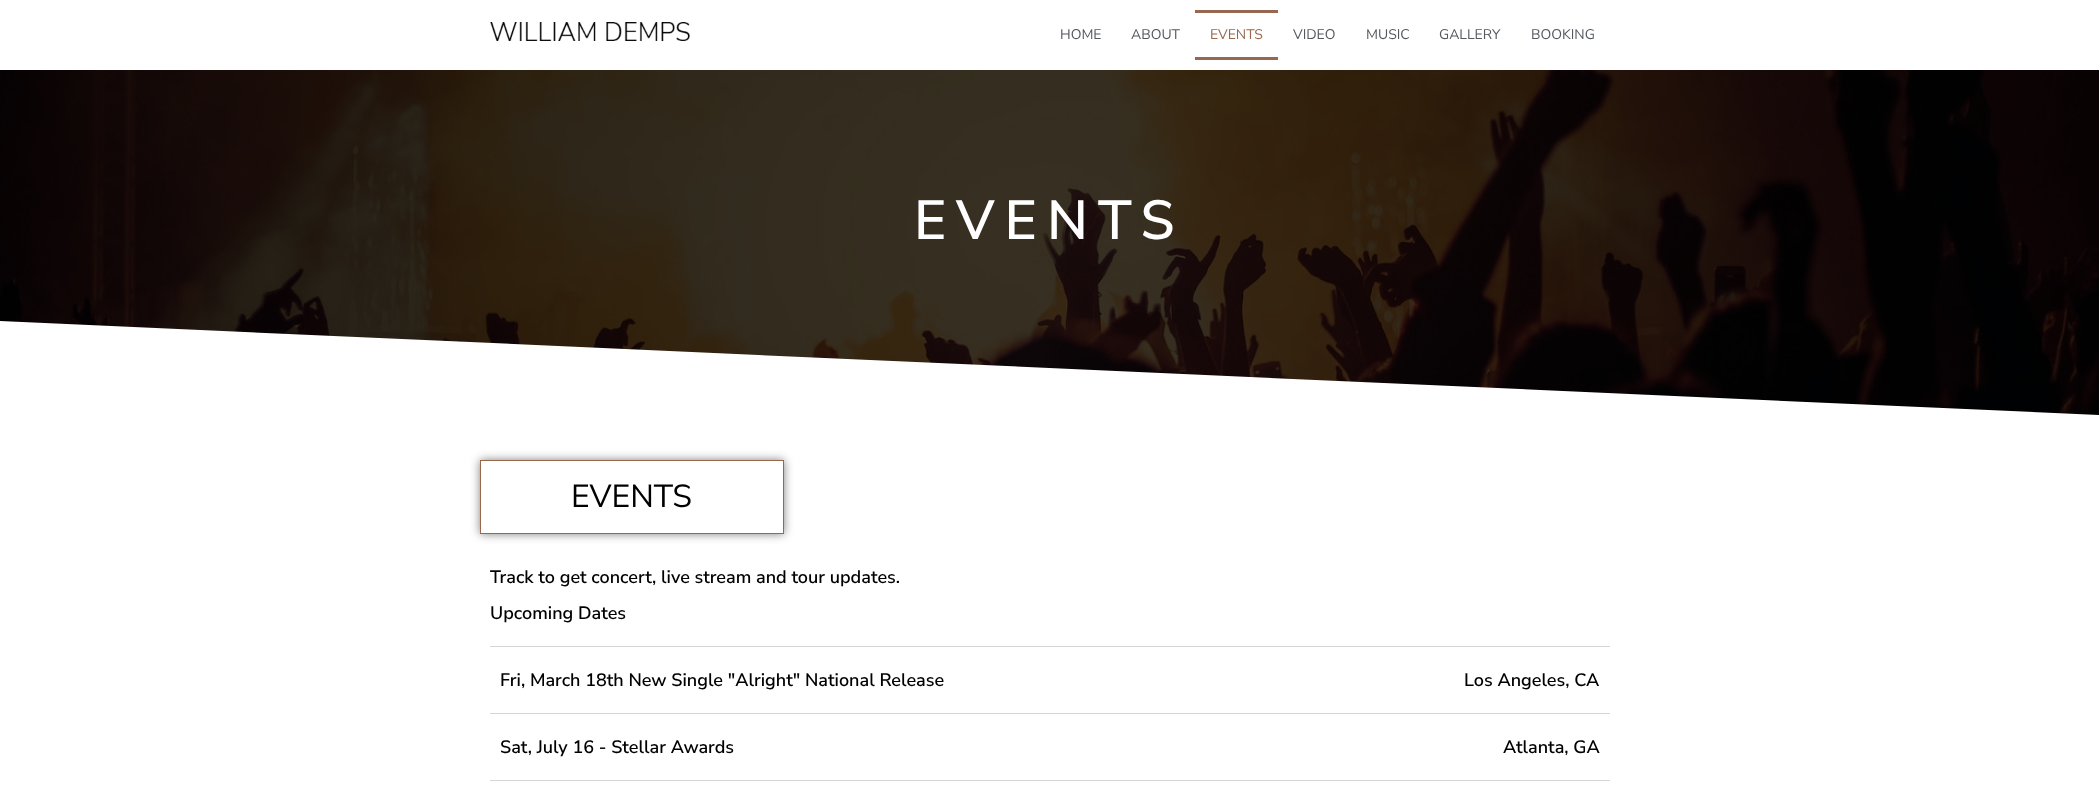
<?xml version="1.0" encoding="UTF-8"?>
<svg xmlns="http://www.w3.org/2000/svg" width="2099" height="810">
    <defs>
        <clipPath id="clip1"><path d="M 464 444 H 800 V 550 H 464 Z M 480 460 H 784 V 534 H 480 Z" clip-rule="evenodd"/></clipPath>
        <filter id="blur1" x="-50%" y="-200%" width="200%" height="500%"><feGaussianBlur stdDeviation="5"/></filter>
    </defs>
    <rect width="100%" height="100%" fill="#FFFFFF"/>
    <image x="490" y="22" width="200" height="19" href="img_01.png"/>
    <text x="1060" y="39" font-family="Nunito Sans" font-size="14" fill="#54595F">HOME</text>
    <text x="1131" y="39" font-family="Nunito Sans" font-size="14" fill="#54595F">ABOUT</text>
    <rect x="1195" y="10" width="83" height="3" fill="#97684E"/>
    <rect x="1195" y="57" width="83" height="3" fill="#97684E"/>
    <text x="1210" y="39" font-family="Nunito Sans" font-size="14" fill="#97684E">EVENTS</text>
    <text x="1293" y="39" font-family="Nunito Sans" font-size="14" fill="#54595F">VIDEO</text>
    <text x="1366" y="39" font-family="Nunito Sans" font-size="14" fill="#54595F">MUSIC</text>
    <text x="1439" y="39" font-family="Nunito Sans" font-size="14" fill="#54595F">GALLERY</text>
    <text x="1531" y="39" font-family="Nunito Sans" font-size="14" fill="#54595F">BOOKING</text>
    <image x="0" y="70" width="2099" height="345" href="img_02.png"/>
    <text x="914" y="239" font-family="Nunito Sans" font-size="55" font-weight="600" letter-spacing="10" fill="#FFFFFF">EVENTS</text>
    <path d="M 2099 415 V 421 H -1 V 321 Z" fill="#FFFFFF"/>
    <g clip-path="url(#clip1)">
        <rect x="480" y="460" width="304" height="74" fill="#000000" fill-opacity="0.5" filter="url(#blur1)"/>
    </g>
    <rect x="480.5" y="460.5" width="303" height="73" fill="none" stroke="#97684E"/>
    <text x="571" y="507" font-family="Nunito Sans" font-size="32" fill="#000000">EVENTS</text>
    <text x="490" y="583" font-family="Nunito Sans" font-size="18" font-weight="600" fill="#000000">Track to get concert, live stream and tour updates.</text>
    <text x="490" y="619" font-family="Nunito Sans" font-size="18" font-weight="600" fill="#000000">Upcoming Dates</text>
    <rect x="490" y="646" width="1120" height="1" fill="#D6D4D4"/>
    <rect x="490" y="713" width="1120" height="1" fill="#D6D4D4"/>
    <text x="500" y="686" font-family="Nunito Sans" font-size="18" font-weight="600" fill="#000000">Fri, March 18th New Single "Alright" National Release</text>
    <text x="1464" y="686" font-family="Nunito Sans" font-size="18" font-weight="600" fill="#000000">Los Angeles, CA</text>
    <rect x="490" y="780" width="1120" height="1" fill="#D6D4D4"/>
    <text x="500" y="753" font-family="Nunito Sans" font-size="18" font-weight="600" fill="#000000">Sat, July 16 - Stellar Awards</text>
    <text x="1503" y="753" font-family="Nunito Sans" font-size="18" font-weight="600" fill="#000000">Atlanta, GA</text>
</svg>
